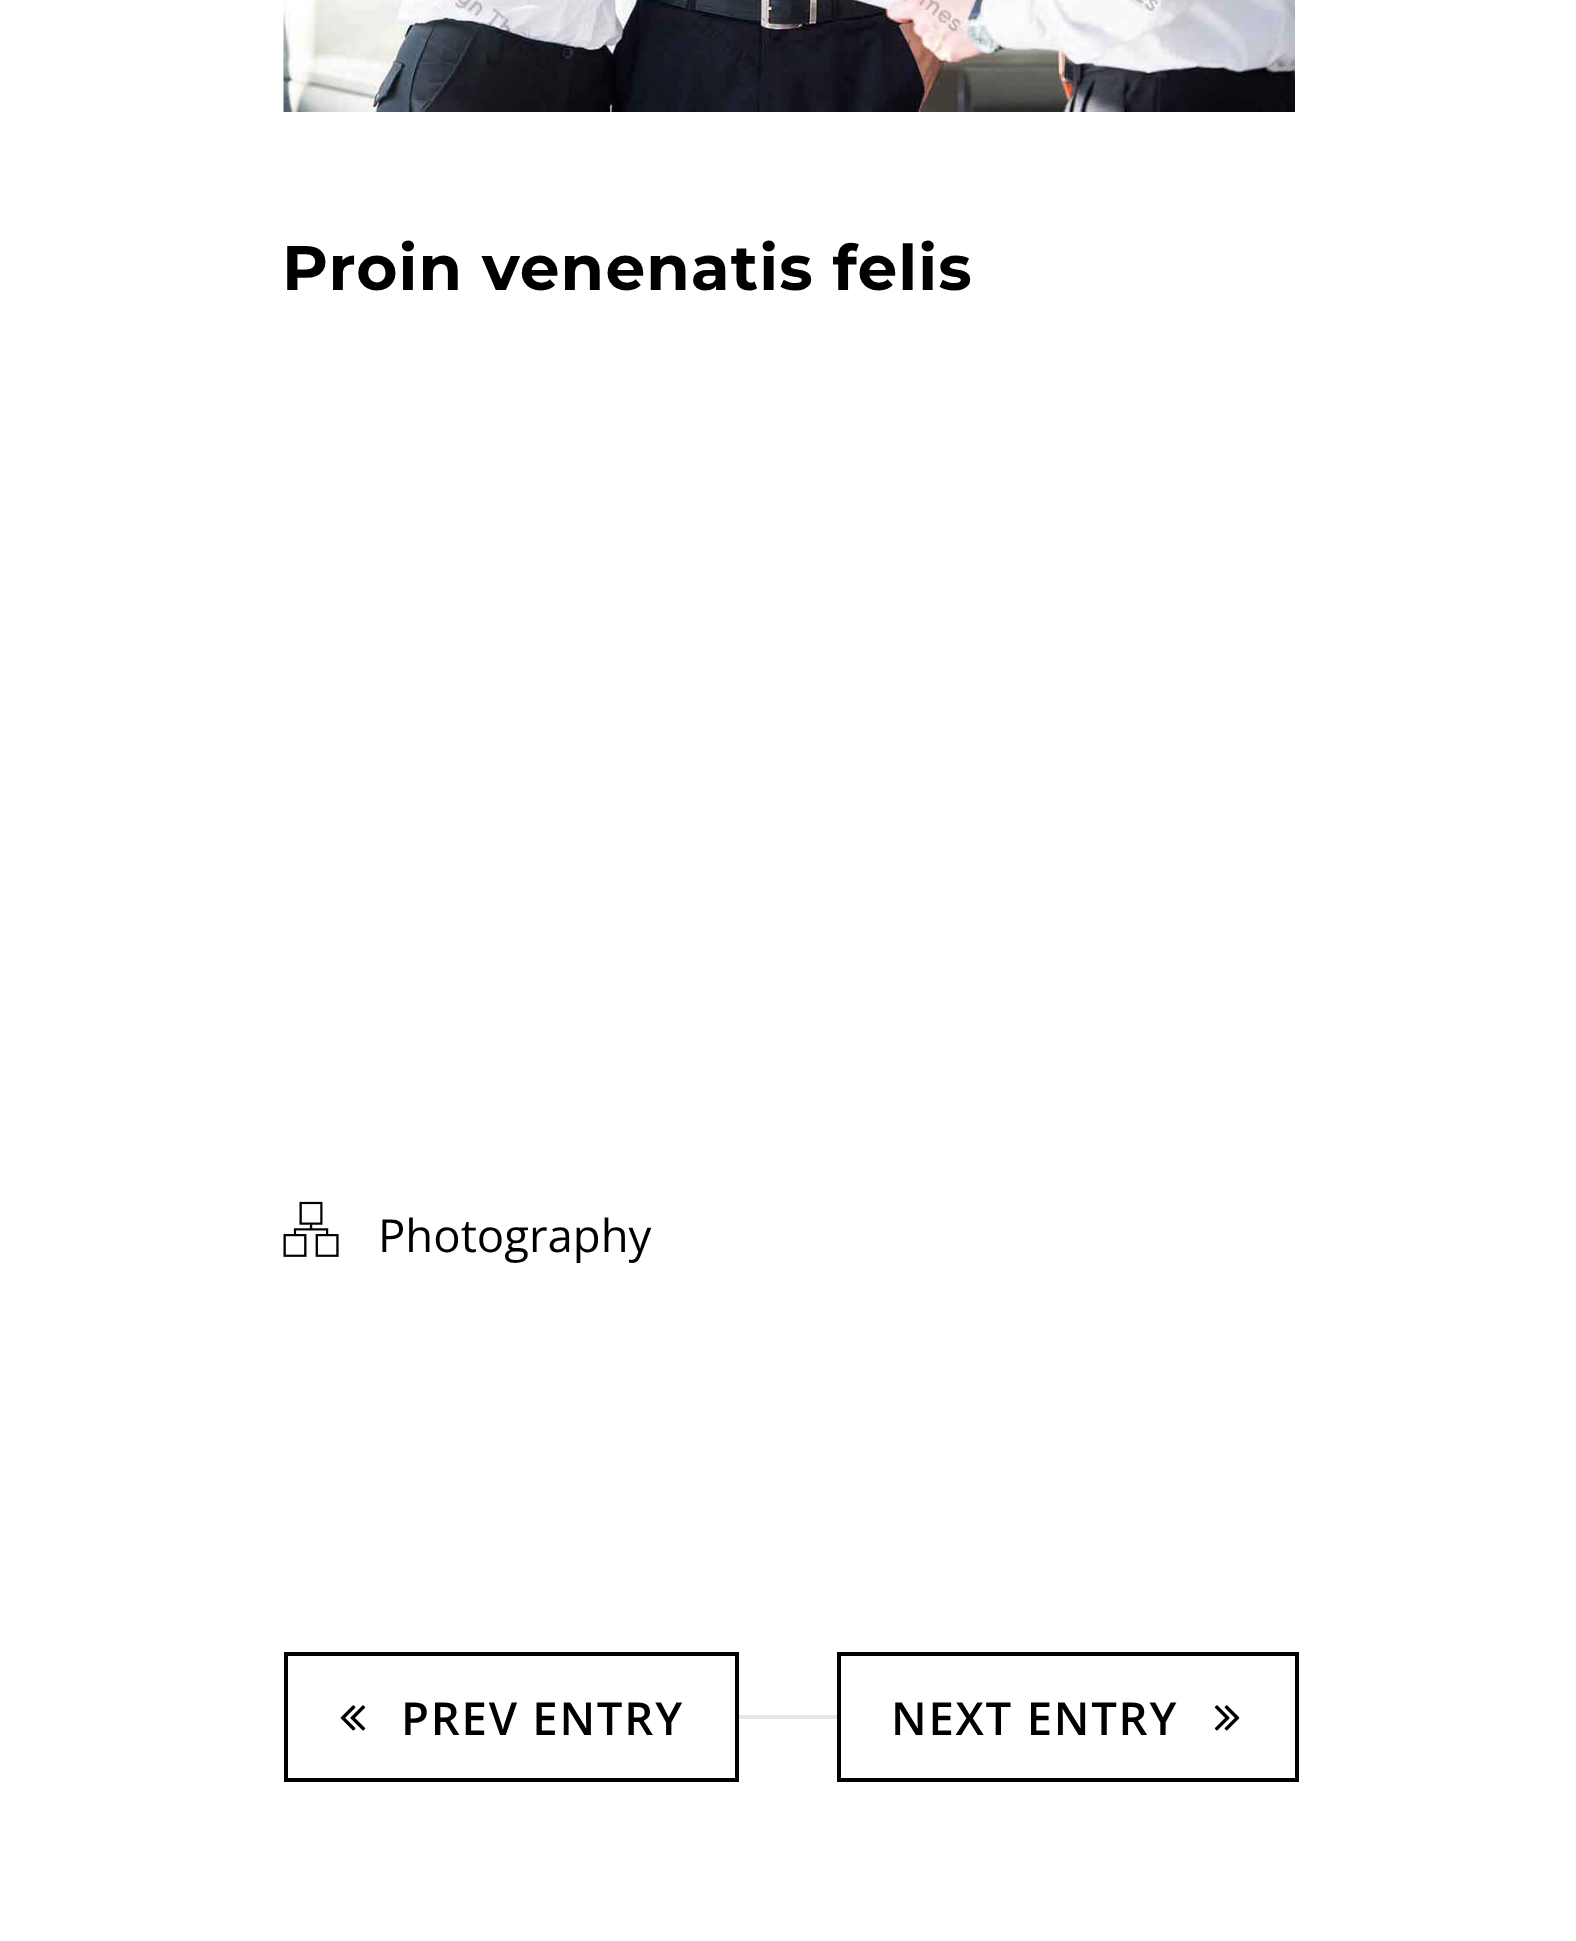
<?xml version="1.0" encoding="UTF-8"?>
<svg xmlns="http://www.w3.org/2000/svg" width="1576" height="1941">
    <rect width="100%" height="100%" fill="#FFFFFF"/>
    <image x="283" y="0" width="1012" height="112" href="img_01.png"/>
    <text x="282" y="290" font-family="Montserrat" font-size="63" font-weight="700" letter-spacing="1.05" fill="#000000">Proin venenatis felis</text>
    <image x="283" y="1201" width="56" height="56" href="img_02.png"/>
    <text x="378" y="1252" font-family="Open Sans" font-size="45.5" fill="#000000">Photography</text>
    <rect x="286" y="1654" width="451" height="126" fill="none" stroke="#000000" stroke-width="4"/>
    <image x="340" y="1705" width="26" height="26" href="img_03.png"/>
    <text x="401" y="1735" font-family="Open Sans" font-size="45.5" font-weight="600" letter-spacing="1.75" fill="#000000">PREV ENTRY</text>
    <rect x="739" y="1715" width="98" height="4" fill="#E6E6E6"/>
    <rect x="839" y="1654" width="458" height="126" fill="none" stroke="#000000" stroke-width="4"/>
    <text x="891" y="1735" font-family="Open Sans" font-size="45.5" font-weight="600" letter-spacing="1.75" fill="#000000">NEXT ENTRY</text>
    <image x="1214" y="1705" width="26" height="26" href="img_04.png"/>
</svg>
